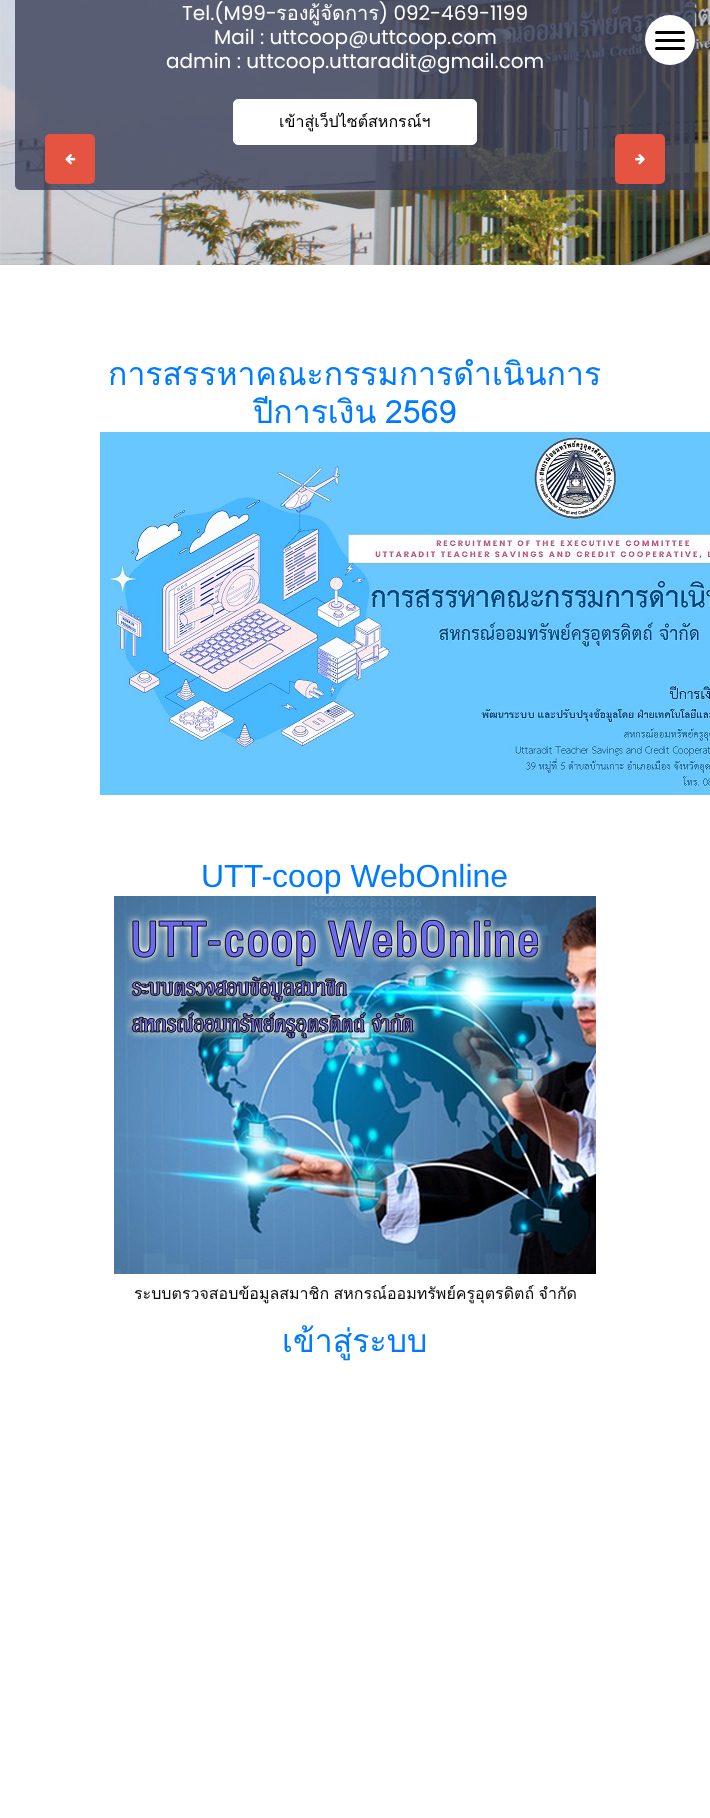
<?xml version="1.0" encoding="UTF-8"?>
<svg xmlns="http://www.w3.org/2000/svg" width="710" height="1818">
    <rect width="100%" height="100%" fill="#FFFFFF"/>
    <image x="0" y="0" width="710" height="265" href="img_01.png"/>
    <rect x="15" y="-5" width="680" height="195" rx="5" fill="#3A3F58" fill-opacity="0.8"/>
    <rect x="45" y="134" width="50" height="50" rx="5" fill="#E45441"/>
    <image x="65" y="154" width="11" height="11" href="img_02.png"/>
    <rect x="615" y="134" width="50" height="50" rx="5" fill="#E45441"/>
    <image x="635" y="154" width="10" height="11" href="img_03.png"/>
    <text x="182" y="20" font-family="Poppins" font-size="20" fill="#FFFFFF">Tel.(M99-</text>
    <text x="276" y="20" font-family="Loma" font-size="20" fill="#FFFFFF">รองผู้จัดการ</text>
    <text x="379" y="20" font-family="Poppins" font-size="20" fill="#FFFFFF">) 092-469-1199</text>
    <text x="214" y="44" font-family="Poppins" font-size="20" fill="#FFFFFF">Mail : uttcoop@uttcoop.com</text>
    <text x="166" y="68" font-family="Poppins" font-size="20" fill="#FFFFFF">admin : uttcoop.uttaradit@gmail.com</text>
    <rect x="233.5" y="99.5" width="243" height="45" rx="4.5" fill="#FFFFFF" stroke="#FFFFFF"/>
    <text x="279" y="127" font-family="Loma" font-size="16" fill="#000000">เข้าสู่เว็ปไซต์สหกรณ์ฯ</text>
    <circle cx="670" cy="40" r="25" fill="#FFFFFF"/>
    <rect x="655" y="31" width="30" height="3" rx="1.5" fill="#000000"/>
    <rect x="655" y="39" width="30" height="3" rx="1.5" fill="#000000"/>
    <rect x="655" y="47" width="30" height="3" rx="1.5" fill="#000000"/>
    <text x="108" y="385" font-family="Loma" font-size="32" fill="#007BFF">การสรรหาคณะกรรมการดำเนินการ</text>
    <text x="253" y="423" word-spacing="-2" font-family="Loma" font-size="32" fill="#007BFF">ปีการเงิน 2569</text>
    <image x="100" y="432" width="610" height="363" href="img_04.png"/>
    <text x="201" y="887" font-family="Liberation Sans" font-size="32" fill="#007BFF">UTT-coop WebOnline</text>
    <image x="114" y="896" width="482" height="378" href="img_05.png"/>
    <text x="134" y="1299" word-spacing="-1" font-family="Loma" font-size="16" fill="#0C0C0C">ระบบตรวจสอบข้อมูลสมาชิก สหกรณ์ออมทรัพย์ครูอุตรดิตถ์ จำกัด</text>
    <text x="282" y="1352" font-family="Loma" font-size="32" fill="#007BFF">เข้าสู่ระบบ</text>
</svg>
